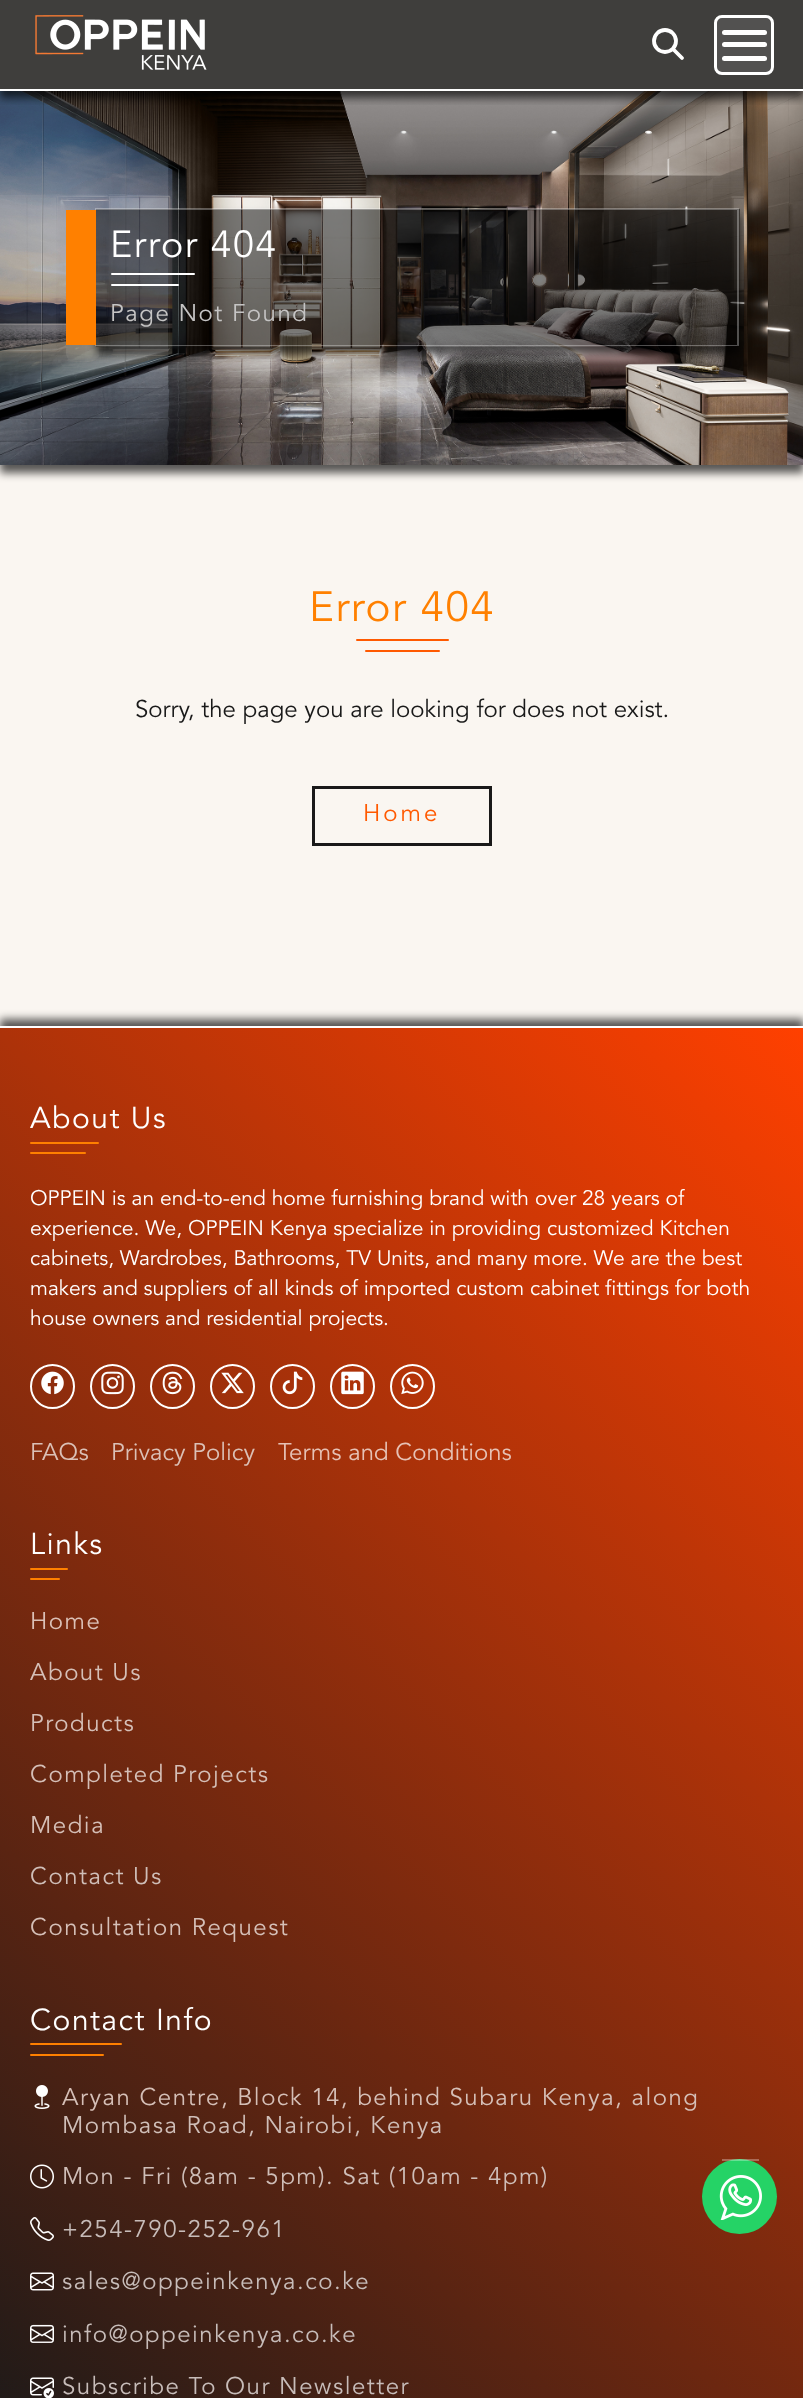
<?xml version="1.0" encoding="UTF-8"?>
<svg xmlns="http://www.w3.org/2000/svg" width="803" height="2398">
    <defs>
        <filter id="blur1" x="-50%" y="-200%" width="200%" height="500%"><feGaussianBlur stdDeviation="4"/></filter>
        <clipPath id="clip1"><rect x="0" y="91" width="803" height="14"/></clipPath>
        <clipPath id="clip2"><path d="M 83 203 H 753 V 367 H 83 Z M 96 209 H 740 V 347 H 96 Z" clip-rule="evenodd"/></clipPath>
        <linearGradient id="g1" gradientUnits="userSpaceOnUse" x1="-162" y1="2318" x2="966" y2="1190"><stop offset="0" stop-color="#191919"/><stop offset="1" stop-color="#FF4000"/></linearGradient>
    </defs>
    <rect width="100%" height="100%" fill="#FAF6F1"/>
    <rect x="0" y="0" width="803" height="89" fill="#3F3E3C"/>
    <rect x="0" y="98" width="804" height="375" fill="#000000" fill-opacity="0.65" filter="url(#blur1)"/>
    <image x="0" y="91" width="803" height="374" href="img_02.png"/>
    <g clip-path="url(#clip1)">
        <rect x="0" y="8" width="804" height="90" fill="#000000" fill-opacity="0.65" filter="url(#blur1)"/>
    </g>
    <rect x="0" y="89" width="803" height="2" fill="#FFFFFF"/>
    <image x="35" y="15" width="172" height="55" href="img_01.png"/>
    <circle cx="665" cy="41" r="11" fill="none" stroke="#FFFFFF" stroke-width="3.8"/>
    <path d="M 673.5 49.5 L 682 58" fill="none" stroke="#FFFFFF" stroke-width="3.8" stroke-linecap="round" stroke-linejoin="round"/>
    <rect x="715.5" y="16.5" width="57" height="57" rx="6.5" fill="#525150" stroke="#FFFFFF" stroke-width="3"/>
    <rect x="722" y="42" width="45" height="5" rx="2.5" fill="#FFFFFF"/>
    <rect x="722" y="30" width="45" height="5" rx="2.5" fill="#FFFFFF"/>
    <rect x="722" y="56" width="45" height="5" rx="2.5" fill="#FFFFFF"/>
    <g clip-path="url(#clip2)">
        <rect x="96" y="216" width="644" height="138" fill="#000000" fill-opacity="0.65" filter="url(#blur1)"/>
    </g>
    <rect x="96" y="209" width="644" height="138" fill="#000000" fill-opacity="0.5"/>
    <path d="M 95 208 H 739 L 737 210 H 95 Z" fill="#FFFFFF" fill-opacity="0.3"/>
    <path d="M 739 208 V 346 L 737 345 V 210 Z" fill="#FFFFFF" fill-opacity="0.3"/>
    <path d="M 739 346 H 95 V 345 H 737 Z" fill="#FFFFFF" fill-opacity="0.3"/>
    <rect x="66" y="210" width="30" height="135" fill="#FF8000"/>
    <text x="110" y="257" font-family="Avenir" font-size="37.5" letter-spacing="1.5" fill="#FFFFFF">Error 404</text>
    <rect x="111" y="273" width="84" height="2" rx="1" fill="#FFFFFF"/>
    <rect x="111" y="284" width="68" height="2" rx="1" fill="#FFFFFF"/>
    <text x="110" y="321" font-family="Avenir" font-size="24" letter-spacing="1.5" fill="#C5C4C4">Page Not Found</text>
    <text x="309" y="621" font-family="Avenir" font-size="42" letter-spacing="1.5" fill="#FF8000">Error 404</text>
    <rect x="356" y="639" width="93" height="2" rx="1" fill="#FF5900"/>
    <rect x="365" y="650" width="75" height="2" rx="1" fill="#FF5900"/>
    <text x="135" y="717" font-family="Avenir" font-size="24" fill="#191919">Sorry, the page you are looking for does not exist.</text>
    <rect x="313.5" y="787.5" width="177" height="57" fill="none" stroke="#191919" stroke-width="3"/>
    <text x="363" y="821" font-family="Avenir" font-size="24" letter-spacing="3" fill="#FF5900">Home</text>
    <rect x="0" y="1019" width="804" height="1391" fill="#000000" fill-opacity="0.65" filter="url(#blur1)"/>
    <rect x="0" y="1028" width="803" height="1370" fill="url(#g1)"/>
    <rect x="0" y="1026" width="803" height="2" fill="#FFFFFF"/>
    <text x="30" y="1128" font-family="Avenir" font-size="30" letter-spacing="1.5" fill="#FFFFFF">About Us</text>
    <rect x="30" y="1142" width="69" height="2" rx="1" fill="#FF8000"/>
    <rect x="30" y="1152" width="56" height="2" rx="1" fill="#FF8000"/>
    <text font-family="Avenir" font-size="21" fill="#FFFFFF">
        <tspan x="30" y="1205">OPPEIN is an end-to-end home furnishing brand with over 28 years of</tspan>
        <tspan x="30" y="1235">experience. We, OPPEIN Kenya specialize in providing customized Kitchen</tspan>
        <tspan x="30" y="1265">cabinets, Wardrobes, Bathrooms, TV Units, and many more. We are the best</tspan>
        <tspan x="30" y="1295">makers and suppliers of all kinds of imported custom cabinet fittings for both</tspan>
        <tspan x="30" y="1325">house owners and residential projects.</tspan>
    </text>
    <circle cx="52.5" cy="1386.5" r="21.5" fill="none" stroke="#FFFFFF" stroke-width="2"/>
    <image x="41" y="1371" width="23" height="24" href="img_03.png"/>
    <circle cx="112.5" cy="1386.5" r="21.5" fill="none" stroke="#FFFFFF" stroke-width="2"/>
    <image x="101" y="1371" width="23" height="24" href="img_04.png"/>
    <circle cx="172.5" cy="1386.5" r="21.5" fill="none" stroke="#FFFFFF" stroke-width="2"/>
    <image x="162" y="1371" width="21" height="24" href="img_05.png"/>
    <circle cx="232.5" cy="1386.5" r="21.5" fill="none" stroke="#FFFFFF" stroke-width="2"/>
    <image x="221" y="1372" width="23" height="22" href="img_06.png"/>
    <circle cx="292.5" cy="1386.5" r="21.5" fill="none" stroke="#FFFFFF" stroke-width="2"/>
    <image x="282" y="1371" width="21" height="24" href="img_07.png"/>
    <circle cx="352.5" cy="1386.5" r="21.5" fill="none" stroke="#FFFFFF" stroke-width="2"/>
    <image x="341" y="1371" width="23" height="24" href="img_08.png"/>
    <circle cx="412.5" cy="1386.5" r="21.5" fill="none" stroke="#FFFFFF" stroke-width="2"/>
    <image x="401" y="1371" width="23" height="24" href="img_09.png"/>
    <text x="30" y="1460" font-family="Avenir" font-size="24" fill="#DBC0B6">FAQs</text>
    <text x="111" y="1460" font-family="Avenir" font-size="24" fill="#DBC0B6">Privacy Policy</text>
    <text x="278" y="1460" font-family="Avenir" font-size="24" fill="#E6C1B5">Terms and Conditions</text>
    <text x="30" y="1554" font-family="Avenir" font-size="30" letter-spacing="1.5" fill="#FFFFFF">Links</text>
    <rect x="30" y="1568" width="38" height="2" rx="1" fill="#FF8000"/>
    <rect x="30" y="1578" width="30" height="2" rx="1" fill="#FF8000"/>
    <text x="30" y="1629" font-family="Avenir" font-size="24" letter-spacing="1.5" fill="#DBC0B6">Home</text>
    <text x="30" y="1680" font-family="Avenir" font-size="24" letter-spacing="1.5" fill="#D5BFB7">About Us</text>
    <text x="30" y="1731" font-family="Avenir" font-size="24" letter-spacing="1.5" fill="#D5BFB7">Products</text>
    <text x="30" y="1782" font-family="Avenir" font-size="24" letter-spacing="1.5" fill="#D5BFB7">Completed Projects</text>
    <text x="30" y="1833" font-family="Avenir" font-size="24" letter-spacing="1.5" fill="#D5BFB7">Media</text>
    <text x="30" y="1884" font-family="Avenir" font-size="24" letter-spacing="1.5" fill="#CFBEB8">Contact Us</text>
    <text x="30" y="1935" font-family="Avenir" font-size="24" letter-spacing="1.5" fill="#D5BFB7">Consultation Request</text>
    <text x="30" y="2030" font-family="Avenir" font-size="30" letter-spacing="1.5" fill="#FFFFFF">Contact Info</text>
    <rect x="30" y="2043" width="92" height="2" rx="1" fill="#FF8000"/>
    <rect x="30" y="2054" width="74" height="2" rx="1" fill="#FF8000"/>
    <image x="34" y="2085" width="16" height="24" href="img_10.png"/>
    <text x="62" y="2105" font-family="Avenir" font-size="24" letter-spacing="1.5" fill="#D5BFB7">Aryan Centre, Block 14, behind Subaru Kenya, along</text>
    <text x="62" y="2133" font-family="Avenir" font-size="24" letter-spacing="1.5" fill="#CFBEB8">Mombasa Road, Nairobi, Kenya</text>
    <image x="30" y="2164" width="24" height="25" href="img_11.png"/>
    <text x="62" y="2184" font-family="Avenir" font-size="24" letter-spacing="1.5" fill="#CFBEB8">Mon - Fri (8am - 5pm). Sat (10am - 4pm)</text>
    <image x="30" y="2217" width="24" height="24" href="img_12.png"/>
    <text x="62" y="2237" font-family="Avenir" font-size="24" letter-spacing="1.5" fill="#C7BCB9">+254-790-252-961</text>
    <image x="30" y="2272" width="24" height="19" href="img_13.png"/>
    <text x="62" y="2289" font-family="Avenir" font-size="24" letter-spacing="1.5" fill="#C7BCB9">sales@oppeinkenya.co.ke</text>
    <image x="30" y="2324" width="24" height="19" href="img_14.png"/>
    <text x="62" y="2342" font-family="Avenir" font-size="24" letter-spacing="1.5" fill="#C7BCB9">info@oppeinkenya.co.ke</text>
    <image x="30" y="2377" width="24" height="21" href="img_15.png"/>
    <text x="62" y="2394" font-family="Avenir" font-size="24" letter-spacing="1.5" fill="#C7BCB9">Subscribe To Our Newsletter</text>
    <circle cx="739.5" cy="2196.5" r="37.5" fill="#25D366"/>
    <rect x="722" y="2159" width="37" height="2" fill="#FFFFFF" fill-opacity="0.3"/>
    <image x="719" y="2175" width="43" height="45" href="img_16.png"/>
</svg>
